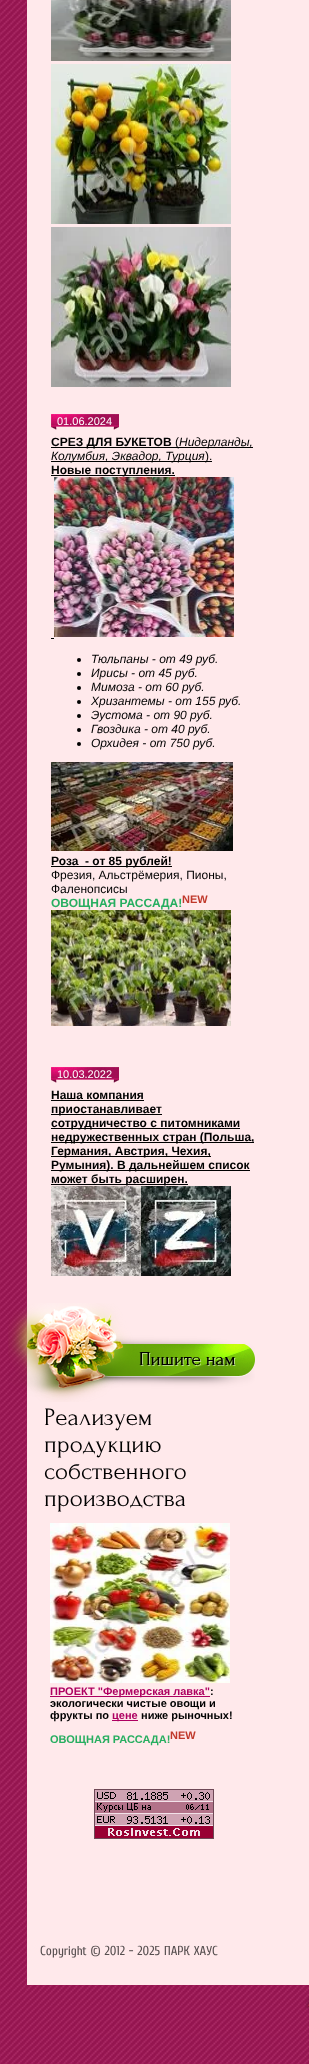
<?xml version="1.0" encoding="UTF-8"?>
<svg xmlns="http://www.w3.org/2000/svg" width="309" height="2064">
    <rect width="100%" height="100%" fill="#FFFFFF"/>
    <image x="0" y="0" width="309" height="2064" href="img_01.png"/>
    <rect x="27" y="0" width="282" height="1985" fill="#FFE9EB"/>
    <image x="51" y="0" width="180" height="61" href="img_02.png"/>
    <image x="51" y="64" width="180" height="160" href="img_03.png"/>
    <image x="51" y="227" width="180" height="160" href="img_04.png"/>
    <image x="51" y="414" width="68" height="16" href="img_05.png"/>
    <text x="57" y="425" font-family="Liberation Sans" font-size="11" fill="#FFFFFF">01.06.2024</text>
    <rect x="51" y="447" width="202" height="1" fill="#000000"/>
    <text x="51" y="446" font-family="Liberation Sans" font-size="12" font-weight="700" fill="#000000">СРЕЗ ДЛЯ БУКЕТОВ</text>
    <text x="175" y="446" font-family="Liberation Sans" font-size="12" fill="#000000">(</text>
    <text x="179" y="446" font-family="Liberation Sans" font-size="12" font-style="italic" fill="#000000">Нидерланды,</text>
    <rect x="51" y="461" width="161" height="1" fill="#000000"/>
    <text x="51" y="460" font-family="Liberation Sans" font-size="12" font-style="italic" fill="#000000">Колумбия, Эквадор, Турция</text>
    <text x="205" y="460" font-family="Liberation Sans" font-size="12" fill="#000000">).</text>
    <rect x="51" y="475" width="124" height="1" fill="#000000"/>
    <text x="51" y="474" font-family="Liberation Sans" font-size="12" font-weight="700" fill="#000000">Новые поступления.</text>
    <image x="54" y="477" width="180" height="160" href="img_06.png"/>
    <rect x="51" y="638" width="3" height="1" fill="#000000"/>
    <circle cx="79" cy="660" r="2" fill="#000000"/>
    <text x="91" y="663" font-family="Liberation Sans" font-size="12" font-style="italic" fill="#000000">Тюльпаны - от 49 руб.</text>
    <circle cx="79" cy="674" r="2" fill="#000000"/>
    <text x="91" y="677" font-family="Liberation Sans" font-size="12" font-style="italic" fill="#000000">Ирисы - от 45 руб.</text>
    <circle cx="79" cy="688" r="2" fill="#000000"/>
    <text x="91" y="691" font-family="Liberation Sans" font-size="12" font-style="italic" fill="#000000">Мимоза - от 60 руб.</text>
    <circle cx="79" cy="702" r="2" fill="#000000"/>
    <text x="91" y="705" font-family="Liberation Sans" font-size="12" font-style="italic" fill="#000000">Хризантемы - от 155 руб.</text>
    <circle cx="79" cy="716" r="2" fill="#000000"/>
    <text x="91" y="719" font-family="Liberation Sans" font-size="12" font-style="italic" fill="#000000">Эустома - от 90 руб.</text>
    <circle cx="79" cy="730" r="2" fill="#000000"/>
    <text x="91" y="733" font-family="Liberation Sans" font-size="12" font-style="italic" fill="#000000">Гвоздика - от 40 руб.</text>
    <circle cx="79" cy="744" r="2" fill="#000000"/>
    <text x="91" y="747" font-family="Liberation Sans" font-size="12" font-style="italic" fill="#000000">Орхидея - от 750 руб.</text>
    <image x="51" y="762" width="182" height="89" href="img_07.png"/>
    <rect x="51" y="866" width="121" height="1" fill="#000000"/>
    <text x="51" y="865" font-family="Liberation Sans" font-size="12" font-weight="700" fill="#000000" xml:space="preserve">Роза  - от 85 рублей!</text>
    <text font-family="Liberation Sans" font-size="12" fill="#000000">
        <tspan x="51" y="879">Фрезия, Альстрёмерия, Пионы,</tspan>
        <tspan x="51" y="893">Фаленопсисы</tspan>
    </text>
    <text x="51" y="907" font-family="Liberation Sans" font-size="12" font-weight="700" fill="#27AE60">ОВОЩНАЯ РАССАДА!</text>
    <text x="182" y="903" font-family="Liberation Sans" font-size="11" font-weight="700" fill="#C0392B">NEW</text>
    <image x="51" y="910" width="180" height="116" href="img_08.png"/>
    <image x="51" y="1067" width="68" height="16" href="img_05.png"/>
    <text x="57" y="1078" font-family="Liberation Sans" font-size="11" fill="#FFFFFF">10.03.2022</text>
    <text x="51" y="1099" font-family="Liberation Sans" font-size="12" font-weight="700" fill="#000000">Наша компания</text>
    <rect x="51" y="1100" width="93" height="1" fill="#000000"/>
    <rect x="51" y="1114" width="111" height="1" fill="#000000"/>
    <text x="51" y="1113" font-family="Liberation Sans" font-size="12" font-weight="700" fill="#000000">приостанавливает</text>
    <rect x="51" y="1128" width="189" height="1" fill="#000000"/>
    <text x="51" y="1127" font-family="Liberation Sans" font-size="12" font-weight="700" fill="#000000">сотрудничество с питомниками</text>
    <rect x="51" y="1142" width="203" height="1" fill="#000000"/>
    <text x="51" y="1141" font-family="Liberation Sans" font-size="12" font-weight="700" fill="#000000">недружественных стран (Польша,</text>
    <rect x="51" y="1156" width="160" height="1" fill="#000000"/>
    <text x="51" y="1155" font-family="Liberation Sans" font-size="12" font-weight="700" fill="#000000">Германия, Австрия, Чехия,</text>
    <rect x="51" y="1170" width="199" height="1" fill="#000000"/>
    <text x="51" y="1169" font-family="Liberation Sans" font-size="12" font-weight="700" fill="#000000">Румыния). В дальнейшем список</text>
    <rect x="51" y="1184" width="137" height="1" fill="#000000"/>
    <text x="51" y="1183" font-family="Liberation Sans" font-size="12" font-weight="700" fill="#000000">может быть расширен.</text>
    <image x="51" y="1186" width="90" height="90" href="img_09.png"/>
    <image x="141" y="1186" width="90" height="90" href="img_10.png"/>
    <image x="8" y="1303" width="247" height="99" href="img_11.png"/>
    <text font-family="Forum" font-size="25" fill="#000000">
        <tspan x="44" y="1425">Реализуем</tspan>
        <tspan x="44" y="1452">продукцию</tspan>
        <tspan x="44" y="1479">собственного</tspan>
        <tspan x="44" y="1506">производства</tspan>
    </text>
    <image x="50" y="1523" width="180" height="160" href="img_12.png"/>
    <rect x="50" y="1696" width="160" height="1" fill="#AE0061"/>
    <text x="50" y="1695" font-family="Liberation Sans" font-size="11" font-weight="700" fill="#AE0061">ПРОЕКТ "Фермерская лавка"</text>
    <text x="210" y="1695" font-family="Liberation Sans" font-size="11" font-weight="700" fill="#000000">:</text>
    <text font-family="Liberation Sans" font-size="11" font-weight="700" fill="#000000">
        <tspan x="50" y="1707">экологически чистые овощи и</tspan>
        <tspan x="50" y="1719">фрукты по</tspan>
    </text>
    <rect x="112" y="1720" width="26" height="1" fill="#AE0061"/>
    <text x="112" y="1719" font-family="Liberation Sans" font-size="11" font-weight="700" fill="#AE0061">цене</text>
    <text x="141" y="1719" font-family="Liberation Sans" font-size="11" font-weight="700" fill="#000000">ниже рыночных!</text>
    <text x="50" y="1743" font-family="Liberation Sans" font-size="11" font-weight="700" fill="#27AE60">ОВОЩНАЯ РАССАДА!</text>
    <text x="170" y="1739" font-family="Liberation Sans" font-size="11" font-weight="700" fill="#C0392B">NEW</text>
    <image x="94" y="1789" width="120" height="50" href="img_13.png"/>
    <text x="40" y="1955" font-family="Cuprum" font-size="13" fill="#574F50">Copyright © 2012 - 2025 ПАРК ХАУС</text>
    <image x="305" y="1996" width="4" height="14" href="img_14.png"/>
</svg>
